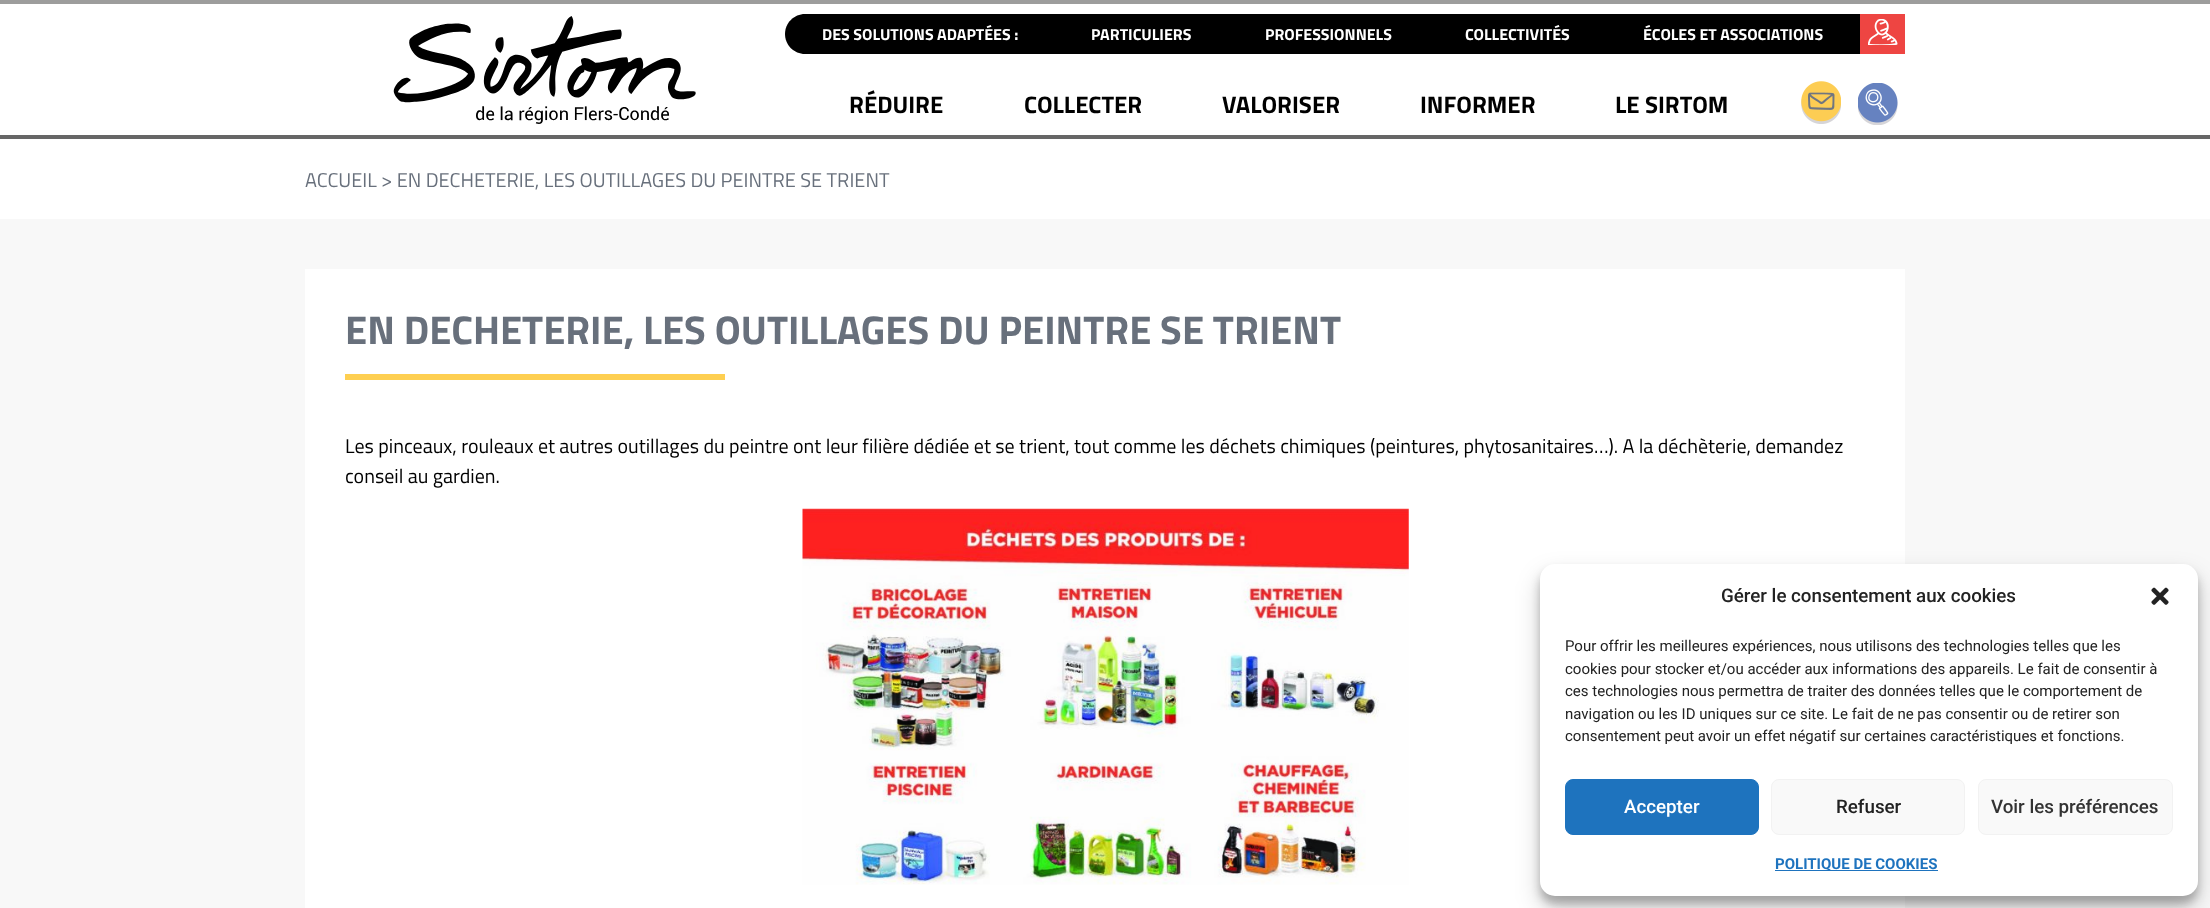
<?xml version="1.0" encoding="UTF-8"?>
<svg xmlns="http://www.w3.org/2000/svg" width="2210" height="908">
    <defs>
        <filter id="blur1" x="-50%" y="-200%" width="200%" height="500%"><feGaussianBlur stdDeviation="4"/></filter>
        <filter id="blur2" x="-50%" y="-200%" width="200%" height="500%"><feGaussianBlur stdDeviation="12.5"/></filter>
    </defs>
    <rect width="100%" height="100%" fill="#FFFFFF"/>
    <rect x="0" y="0" width="2210" height="4" fill="#9D9D9C"/>
    <image x="393" y="16" width="303" height="108" href="img_01.png"/>
    <path d="M 805 14 H 1860 V 54 H 805 C 794 54 785 45 785 34 C 785 23 794 14 805 14 Z" fill="#000000"/>
    <text x="822" y="40" font-family="Titillium Web" font-size="16" font-weight="700" fill="#FFFFFF">DES SOLUTIONS ADAPTÉES :</text>
    <text x="1091" y="40" font-family="Titillium Web" font-size="16" font-weight="700" fill="#FFFFFF">PARTICULIERS</text>
    <text x="1265" y="40" font-family="Titillium Web" font-size="16" font-weight="700" fill="#FFFFFF">PROFESSIONNELS</text>
    <text x="1465" y="40" font-family="Titillium Web" font-size="16" font-weight="700" fill="#FFFFFF">COLLECTIVITÉS</text>
    <text x="1643" y="40" font-family="Titillium Web" font-size="16" font-weight="700" fill="#FFFFFF">ÉCOLES ET ASSOCIATIONS</text>
    <rect x="1860" y="14" width="45" height="40" fill="#EE4542"/>
    <image x="1868" y="19" width="30" height="26" href="img_02.png"/>
    <text x="849" y="113" font-family="Titillium Web" font-size="24" font-weight="700" fill="#000000">RÉDUIRE</text>
    <text x="1024" y="113" font-family="Titillium Web" font-size="24" font-weight="700" fill="#000000">COLLECTER</text>
    <text x="1222" y="113" font-family="Titillium Web" font-size="24" font-weight="700" fill="#000000">VALORISER</text>
    <text x="1420" y="113" font-family="Titillium Web" font-size="24" font-weight="700" fill="#000000">INFORMER</text>
    <text x="1615" y="113" font-family="Titillium Web" font-size="24" font-weight="700" fill="#000000">LE SIRTOM</text>
    <image x="1801" y="81" width="40" height="43" href="img_03.png"/>
    <image x="1858" y="83" width="40" height="42" href="img_04.png"/>
    <rect x="0" y="135" width="2210" height="4" fill="#666666"/>
    <text x="305" y="187" font-family="Titillium Web" font-size="20" fill="#68707C">ACCUEIL &gt; EN DECHETERIE, LES OUTILLAGES DU PEINTRE SE TRIENT</text>
    <rect x="0" y="219" width="2210" height="689" fill="#F8F8F8"/>
    <rect x="305" y="269" width="1600" height="639" fill="#FFFFFF"/>
    <text x="345" y="344" font-family="Titillium Web" font-size="40" font-weight="700" fill="#68707C">EN DECHETERIE, LES OUTILLAGES DU PEINTRE SE TRIENT</text>
    <rect x="345" y="374" width="380" height="6" fill="#FECF51"/>
    <text font-family="Titillium Web" font-size="20" fill="#000000">
        <tspan x="345" y="453">Les pinceaux, rouleaux et autres outillages du peintre ont leur filière dédiée et se trient, tout comme les déchets chimiques (peintures, phytosanitaires…). A la déchèterie, demandez</tspan>
        <tspan x="345" y="483">conseil au gardien.</tspan>
    </text>
    <image x="802" y="508" width="607" height="377" href="img_05.png"/>
    <rect x="1540" y="571" width="658" height="333" rx="15" fill="#000000" fill-opacity="0.23" filter="url(#blur1)"/>
    <rect x="1540" y="576" width="658" height="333" rx="15" fill="#000000" fill-opacity="0.19" filter="url(#blur2)"/>
    <rect x="1540" y="564" width="658" height="332" rx="15" fill="#FFFFFF"/>
    <text x="1721" y="602" font-family="Roboto" font-size="18.75" font-weight="500" fill="#222222">Gérer le consentement aux cookies</text>
    <image x="2151" y="587" width="18" height="18" href="img_06.png"/>
    <text font-family="Roboto" font-size="15" fill="#222222">
        <tspan x="1565" y="651">Pour offrir les meilleures expériences, nous utilisons des technologies telles que les</tspan>
        <tspan x="1565" y="674">cookies pour stocker et/ou accéder aux informations des appareils. Le fait de consentir à</tspan>
        <tspan x="1565" y="696">ces technologies nous permettra de traiter des données telles que le comportement de</tspan>
        <tspan x="1565" y="719">navigation ou les ID uniques sur ce site. Le fait de ne pas consentir ou de retirer son</tspan>
        <tspan x="1565" y="741">consentement peut avoir un effet négatif sur certaines caractéristiques et fonctions.</tspan>
    </text>
    <rect x="1565.5" y="779.5" width="193" height="55" rx="7.5" fill="#1E73BE" stroke="#1E73BE"/>
    <text x="1624" y="813" font-family="Roboto" font-size="18.75" font-weight="500" fill="#FFFFFF">Accepter</text>
    <rect x="1771.5" y="779.5" width="193" height="55" rx="7.5" fill="#F9F9F9" stroke="#F2F2F2"/>
    <text x="1836" y="813" font-family="Roboto" font-size="18.75" font-weight="500" fill="#222222">Refuser</text>
    <rect x="1978.5" y="779.5" width="194" height="55" rx="7.5" fill="#F9F9F9" stroke="#F2F2F2"/>
    <text x="1991" y="813" font-family="Roboto" font-size="18.75" font-weight="500" fill="#333333">Voir les préférences</text>
    <rect x="1775" y="870" width="163" height="1" fill="#1E73BE"/>
    <text x="1775" y="869" font-family="Roboto" font-size="15" font-weight="700" fill="#1E73BE">POLITIQUE DE COOKIES</text>
</svg>
